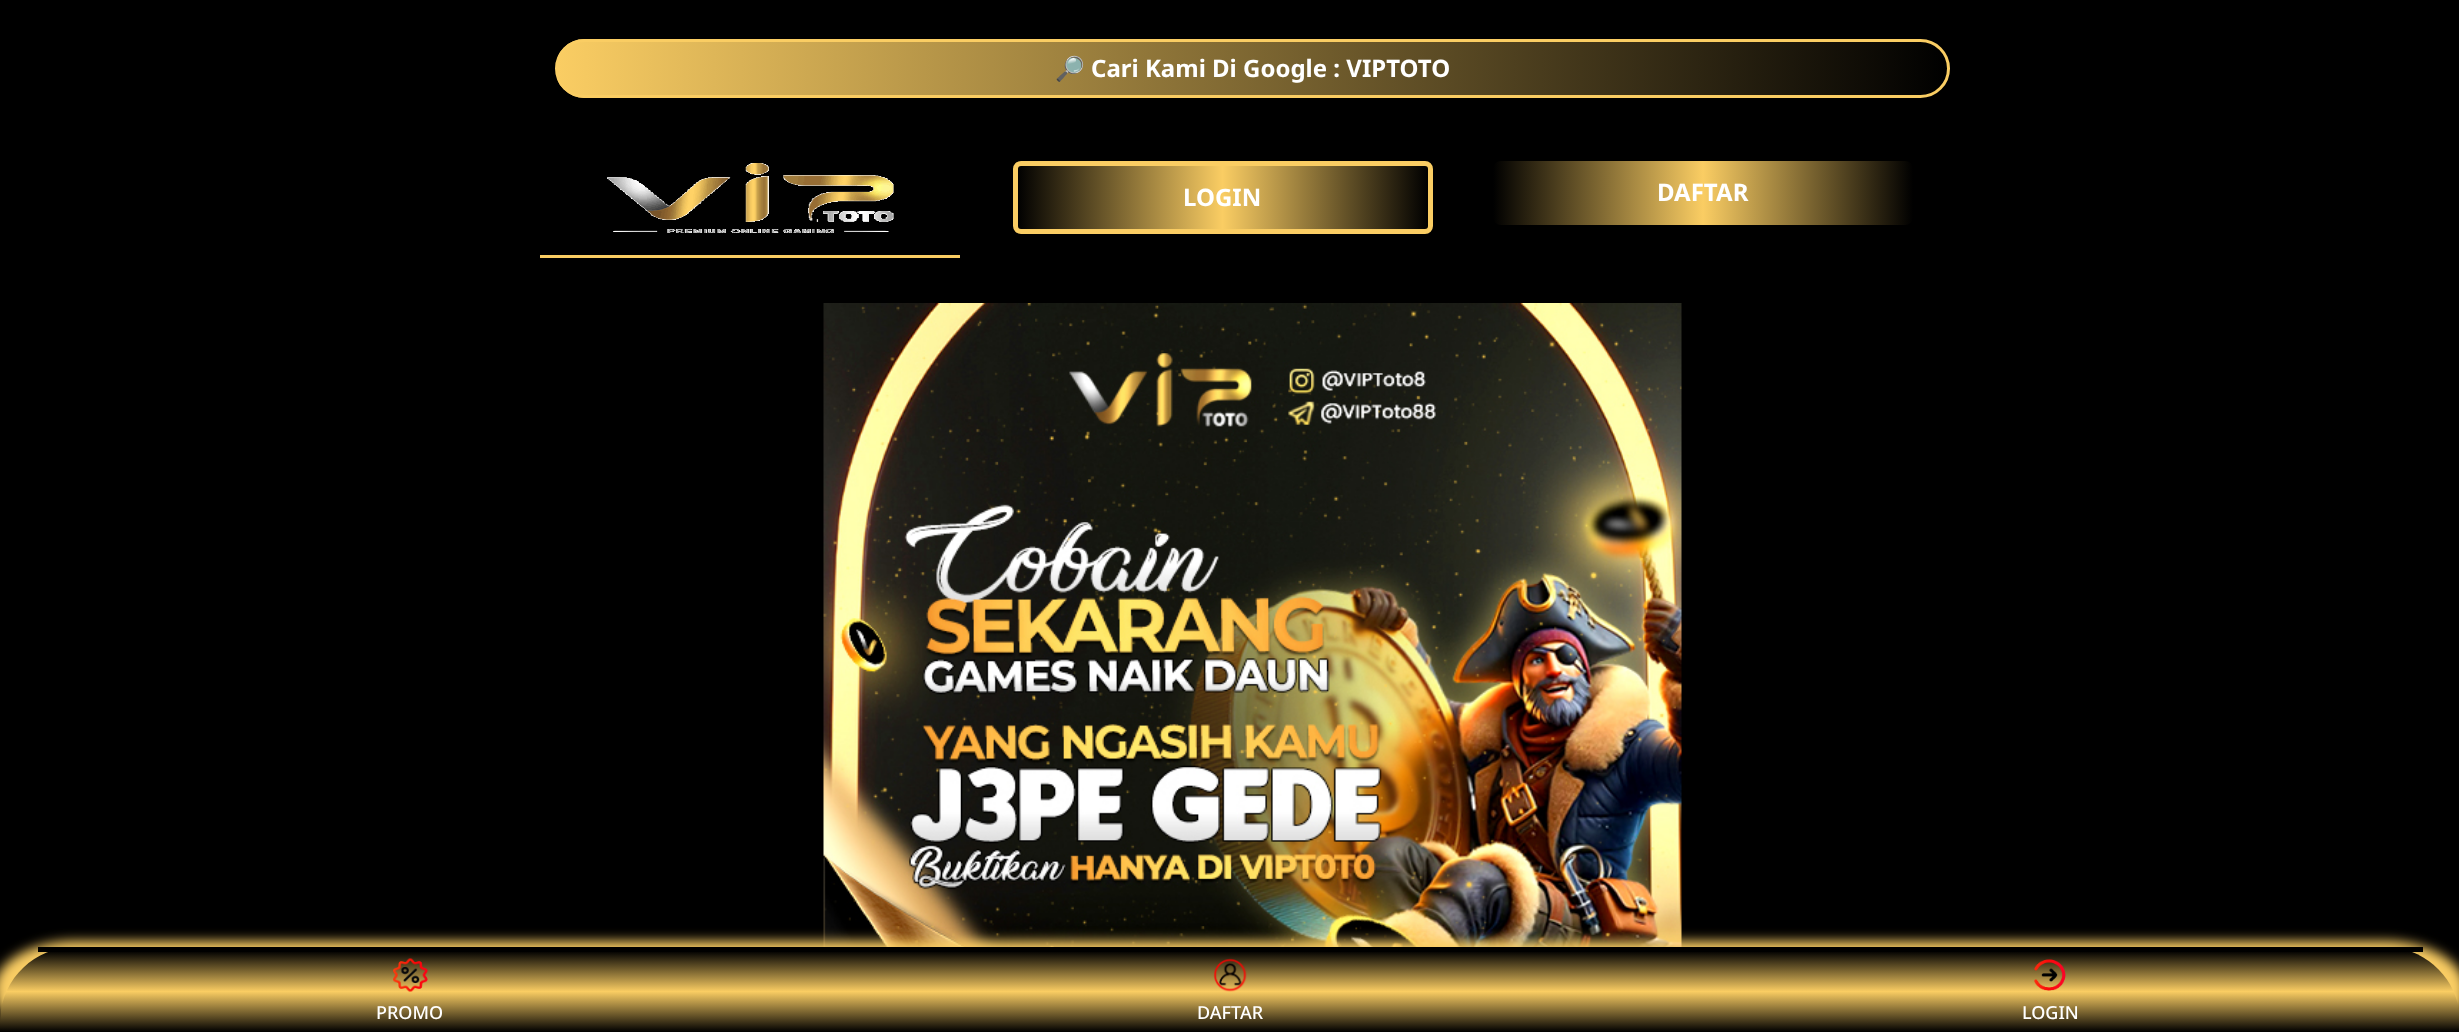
<?xml version="1.0" encoding="UTF-8"?>
<svg xmlns="http://www.w3.org/2000/svg" width="2459" height="1032">
    <defs>
        <clipPath id="clip1"><rect x="555" y="39" width="1395" height="59" rx="29.5"/></clipPath>
        <linearGradient id="g1" gradientUnits="userSpaceOnUse" x1="558" y1="68" x2="1947" y2="68"><stop offset="0" stop-color="#FACD63"/><stop offset="1" stop-color="#000000"/></linearGradient>
        <clipPath id="clip2"><rect x="1013" y="161" width="420" height="73" rx="8"/></clipPath>
        <linearGradient id="g2" gradientUnits="userSpaceOnUse" x1="1017" y1="197" x2="1428" y2="197"><stop offset="0" stop-color="#000000"/><stop offset="0.5" stop-color="#FACD63"/><stop offset="1" stop-color="#000000"/></linearGradient>
        <linearGradient id="g3" gradientUnits="userSpaceOnUse" x1="1493" y1="193" x2="1913" y2="193"><stop offset="0" stop-color="#000000"/><stop offset="0.5" stop-color="#FACD63"/><stop offset="1" stop-color="#000000"/></linearGradient>
        <filter id="blur1" x="-50%" y="-200%" width="200%" height="500%"><feGaussianBlur stdDeviation="6"/></filter>
        <clipPath id="clip3"><path d="M 75 947 H 2385 C 2426.5 947 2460 980.5 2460 1022 V 1032 H 0 V 1022 C 0 980.5 33.5 947 75 947 Z"/></clipPath>
        <linearGradient id="g4" gradientUnits="userSpaceOnUse" x1="1230" y1="951" x2="1230" y2="1032"><stop offset="0" stop-color="#000000"/><stop offset="0.5" stop-color="#FACD63"/><stop offset="1" stop-color="#000000"/></linearGradient>
    </defs>
    <rect width="100%" height="100%" fill="#000000"/>
    <g clip-path="url(#clip1)">
        <rect x="558" y="39" width="1389" height="59" fill="url(#g1)"/>
    </g>
    <rect x="556.5" y="40.5" width="1392" height="56" rx="28" fill="none" stroke="#FACD63" stroke-width="3"/>
    <text x="1055" y="77" font-family="Noto Color Emoji" font-size="24" font-weight="700" fill="#FFFFFF">🔎</text>
    <text x="1091" y="77" font-family="Noto Sans" font-size="24" font-weight="700" fill="#FFFFFF">Cari Kami Di Google : VIPTOTO</text>
    <rect x="540" y="255" width="420" height="3" fill="#FACD63"/>
    <image x="607" y="163" width="287" height="70" href="img_01.png"/>
    <g clip-path="url(#clip2)">
        <rect x="1017" y="161" width="411" height="73" fill="url(#g2)"/>
    </g>
    <rect x="1015.5" y="163.5" width="415" height="68" rx="5.5" fill="none" stroke="#FACD63" stroke-width="5"/>
    <text x="1183" y="206" font-family="Noto Sans" font-size="24" font-weight="700" fill="#FFFFFF">LOGIN</text>
    <rect x="1493" y="161" width="420" height="64" rx="8" fill="url(#g3)"/>
    <text x="1657" y="201" font-family="Noto Sans" font-size="24" font-weight="700" fill="#FFFFFF">DAFTAR</text>
    <image x="823" y="303" width="859" height="644" href="img_02.png"/>
    <rect x="-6" y="941" width="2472" height="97" rx="81" fill="#FACD63" filter="url(#blur1)"/>
    <g clip-path="url(#clip3)">
        <rect x="0" y="952" width="2459" height="80" fill="url(#g4)"/>
    </g>
    <rect x="38" y="947" width="2385" height="5" fill="#000000"/>
    <image x="393" y="958" width="35" height="34" href="img_03.png"/>
    <text x="376" y="1019" font-family="Noto Sans" font-size="18" font-weight="500" fill="#FFFFFF">PROMO</text>
    <image x="1213" y="958" width="34" height="34" href="img_04.png"/>
    <text x="1197" y="1019" font-family="Noto Sans" font-size="18" font-weight="500" fill="#FFFFFF">DAFTAR</text>
    <image x="2034" y="959" width="32" height="32" href="img_05.png"/>
    <text x="2022" y="1019" font-family="Noto Sans" font-size="18" font-weight="500" fill="#FFFFFF">LOGIN</text>
</svg>
